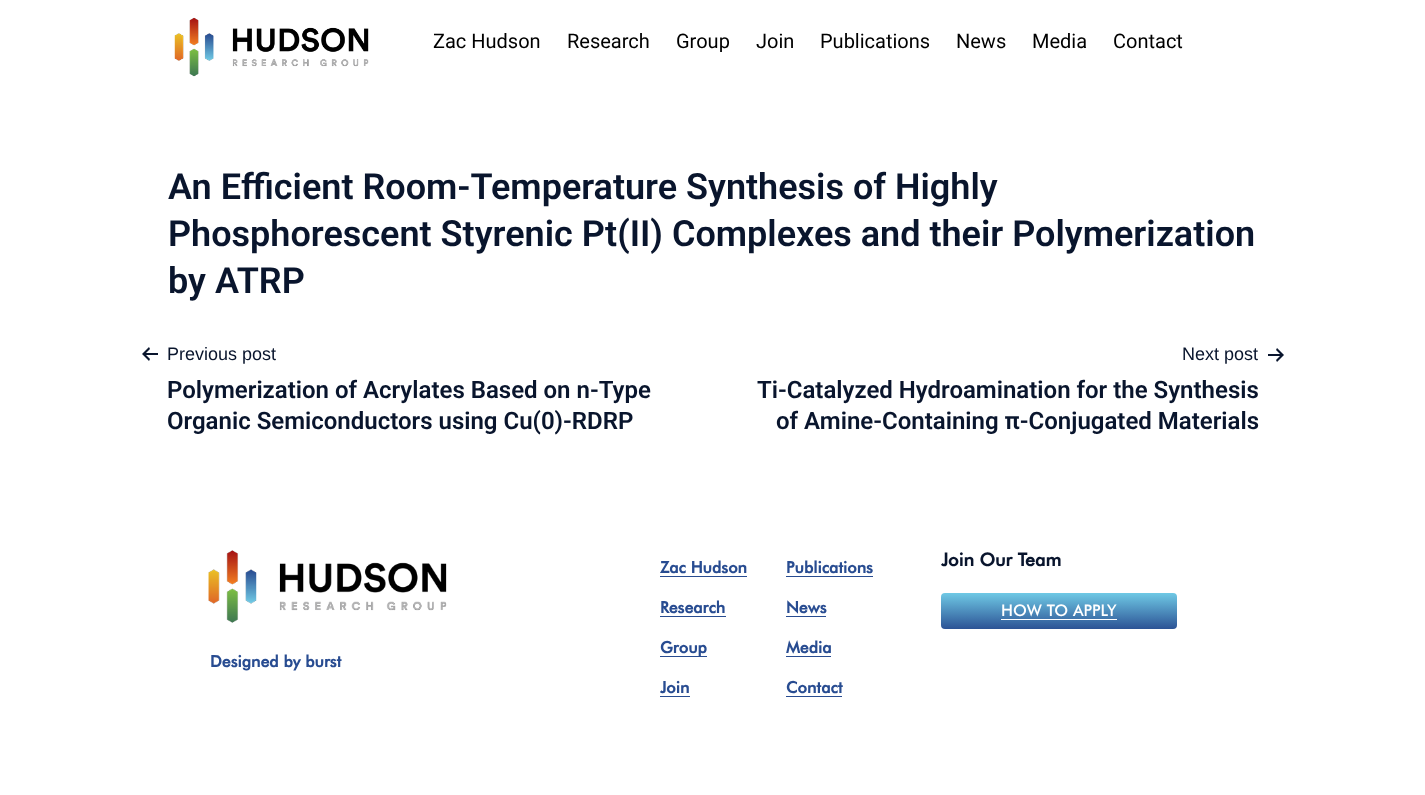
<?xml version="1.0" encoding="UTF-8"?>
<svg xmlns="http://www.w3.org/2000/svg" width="1425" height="795">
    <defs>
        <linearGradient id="g1" gradientUnits="userSpaceOnUse" x1="1059" y1="629" x2="1059" y2="593"><stop offset="0" stop-color="#2C5395"/><stop offset="1" stop-color="#6FC9E5"/></linearGradient>
    </defs>
    <rect width="100%" height="100%" fill="#FFFFFF"/>
    <image x="174" y="17" width="195" height="60" href="img_01.png"/>
    <text x="433" y="48" font-family="Roboto" font-size="20" fill="#000000">Zac Hudson</text>
    <text x="567" y="48" font-family="Roboto" font-size="20" fill="#000000">Research</text>
    <text x="676" y="48" font-family="Roboto" font-size="20" fill="#000000">Group</text>
    <text x="756" y="48" font-family="Roboto" font-size="20" fill="#000000">Join</text>
    <text x="820" y="48" font-family="Roboto" font-size="20" fill="#000000">Publications</text>
    <text x="956" y="48" font-family="Roboto" font-size="20" fill="#000000">News</text>
    <text x="1032" y="48" font-family="Roboto" font-size="20" fill="#000000">Media</text>
    <text x="1113" y="48" font-family="Roboto" font-size="20" fill="#000000">Contact</text>
    <text font-family="Roboto" font-size="36" font-weight="600" fill="#09152D">
        <tspan x="168" y="199">An Efficient Room-Temperature Synthesis of Highly</tspan>
        <tspan x="168" y="246">Phosphorescent Styrenic Pt(II) Complexes and their Polymerization</tspan>
        <tspan x="168" y="293">by ATRP</tspan>
    </text>
    <image x="142" y="347" width="16" height="14" href="img_02.png"/>
    <text x="167" y="360" font-family="Liberation Sans" font-size="18" fill="#09152D">Previous post</text>
    <text font-family="Roboto" font-size="24" font-weight="600" fill="#09152D">
        <tspan x="167" y="398">Polymerization of Acrylates Based on n-Type</tspan>
        <tspan x="167" y="429">Organic Semiconductors using Cu(0)-RDRP</tspan>
    </text>
    <text x="1182" y="360" font-family="Liberation Sans" font-size="18" fill="#09152D">Next post</text>
    <image x="1268" y="348" width="16" height="14" href="img_03.png"/>
    <text x="757" y="398" font-family="Roboto" font-size="24" font-weight="600" fill="#09152D">Ti-Catalyzed Hydroamination for the Synthesis</text>
    <text x="776" y="429" font-family="Roboto" font-size="24" font-weight="600" fill="#09152D">of Amine-Containing π-Conjugated Materials</text>
    <image x="208" y="550" width="239" height="73" href="img_04.png"/>
    <text x="210" y="667" font-family="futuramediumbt" font-size="16" font-weight="700" fill="#284C91">Designed by burst</text>
    <text x="660" y="573" font-family="futuramediumbt" font-size="16" font-weight="700" fill="#284C91">Zac Hudson</text>
    <rect x="660" y="576" width="87" height="1" fill="#284C91"/>
    <text x="786" y="573" font-family="futuramediumbt" font-size="16" font-weight="700" fill="#284C91">Publications</text>
    <rect x="786" y="576" width="87" height="1" fill="#284C91"/>
    <text x="660" y="613" font-family="futuramediumbt" font-size="16" font-weight="700" fill="#284C91">Research</text>
    <rect x="660" y="616" width="66" height="1" fill="#284C91"/>
    <text x="786" y="613" font-family="futuramediumbt" font-size="16" font-weight="700" fill="#284C91">News</text>
    <rect x="786" y="616" width="40" height="1" fill="#284C91"/>
    <rect x="660" y="656" width="47" height="1" fill="#284C91"/>
    <text x="660" y="653" font-family="futuramediumbt" font-size="16" font-weight="700" fill="#284C91">Group</text>
    <text x="786" y="653" font-family="futuramediumbt" font-size="16" font-weight="700" fill="#284C91">Media</text>
    <rect x="786" y="656" width="45" height="1" fill="#284C91"/>
    <text x="660" y="693" font-family="futuramediumbt" font-size="16" font-weight="700" fill="#284C91">Join</text>
    <rect x="660" y="696" width="30" height="1" fill="#284C91"/>
    <text x="786" y="693" font-family="futuramediumbt" font-size="16" font-weight="700" fill="#284C91">Contact</text>
    <rect x="786" y="696" width="56" height="1" fill="#284C91"/>
    <text x="941" y="566" font-family="futuramediumbt" font-size="18" font-weight="700" fill="#09152D">Join Our Team</text>
    <rect x="941" y="593" width="236" height="36" rx="4" fill="url(#g1)"/>
    <text x="1001" y="616" font-family="futuramediumbt" font-size="16" font-weight="500" fill="#FFFFFF">HOW TO APPLY</text>
    <rect x="1001" y="619" width="116" height="1" fill="#FFFFFF"/>
</svg>
